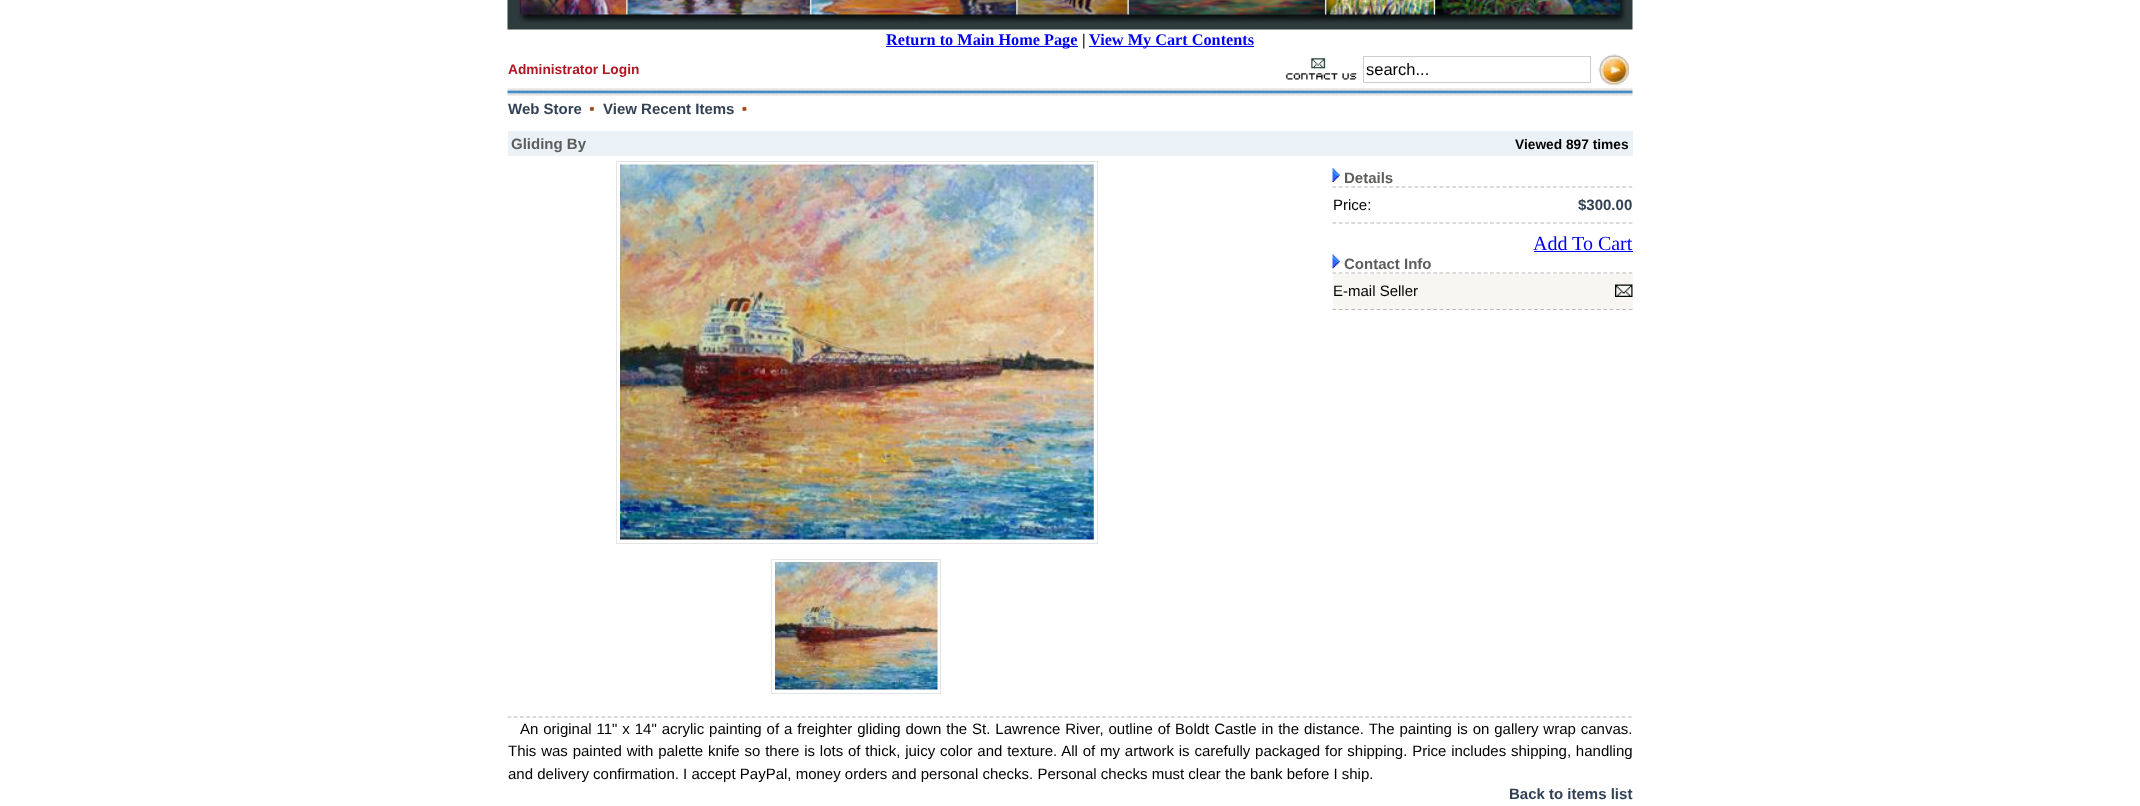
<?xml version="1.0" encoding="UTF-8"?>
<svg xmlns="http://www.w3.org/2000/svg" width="2140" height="806">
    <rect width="100%" height="100%" fill="#FFFFFF"/>
    <image x="507" y="0" width="1126" height="30" href="img_01.png"/>
    <rect x="886" y="46" width="192" height="1" fill="#0000EE"/>
    <text x="886" y="45" font-family="Liberation Serif" font-size="16.25" font-weight="700" fill="#0000EE">Return to Main Home Page</text>
    <text x="1082" y="45" font-family="Liberation Serif" font-size="16.25" font-weight="700" fill="#000000">|</text>
    <rect x="1089" y="46" width="165" height="1" fill="#0000EE"/>
    <text x="1089" y="45" font-family="Liberation Serif" font-size="16.25" font-weight="700" fill="#0000EE">View My Cart Contents</text>
    <text x="508" y="74" font-family="Liberation Sans" font-size="13.75" font-weight="700" fill="#B11624">Administrator Login</text>
    <image x="1286" y="58" width="71" height="22" href="img_02.png"/>
    <rect x="1363.5" y="56.5" width="227" height="26" fill="none" stroke="#CDCDCD"/>
    <text x="1366" y="75" font-family="Liberation Sans" font-size="16.5" fill="#000000">search...</text>
    <image x="1598" y="54" width="31" height="31" href="img_03.png"/>
    <image x="507" y="88" width="1126" height="8" href="img_04.png"/>
    <text x="508" y="114" font-family="Liberation Sans" font-size="15" font-weight="700" fill="#324154">Web Store</text>
    <image x="589" y="106" width="5" height="5" href="img_05.png"/>
    <text x="603" y="114" font-family="Liberation Sans" font-size="15" font-weight="700" fill="#324154">View Recent Items</text>
    <image x="742" y="106" width="5" height="5" href="img_06.png"/>
    <rect x="508" y="131" width="1125" height="25" fill="#EBF2F7"/>
    <text x="511" y="149" font-family="Liberation Sans" font-size="15" font-weight="700" fill="#5D5D5B">Gliding By</text>
    <text x="1515" y="149" font-family="Liberation Sans" font-size="13.75" font-weight="700" fill="#000000">Viewed 897 times</text>
    <rect x="616.5" y="161.5" width="481" height="382" fill="none" stroke="#E5E5E5"/>
    <image x="620" y="164" width="474" height="376" href="img_07.png"/>
    <rect x="771.5" y="559.5" width="169" height="134" fill="none" stroke="#E5E5E5"/>
    <image x="775" y="562" width="163" height="128" href="img_08.png"/>
    <image x="1332" y="168" width="8" height="14" href="img_09.png"/>
    <text x="1344" y="183" font-family="Liberation Sans" font-size="15" font-weight="700" fill="#5D5D5B">Details</text>
    <path d="M 1332.5 187 H 1632.5" fill="none" stroke="#BBB7B5" stroke-width="1.2" stroke-dasharray="3.75 2.55"/>
    <path d="M 1332.5 223 H 1632.5" fill="none" stroke="#BBB7B5" stroke-width="1.2" stroke-dasharray="3.75 2.55"/>
    <text x="1333" y="210" font-family="Liberation Sans" font-size="15" fill="#000000">Price:</text>
    <text x="1578" y="210" font-family="Liberation Sans" font-size="15" font-weight="700" fill="#324154">$300.00</text>
    <text x="1533" y="250" font-family="Liberation Serif" font-size="20" fill="#0000EE">Add To Cart</text>
    <rect x="1534" y="251" width="99" height="1" fill="#0000EE"/>
    <image x="1332" y="254" width="8" height="15" href="img_10.png"/>
    <text x="1344" y="269" font-family="Liberation Sans" font-size="15" font-weight="700" fill="#5D5D5B">Contact Info</text>
    <path d="M 1332.5 273 H 1632.5" fill="none" stroke="#BBB7B5" stroke-width="1.2" stroke-dasharray="3.75 2.55"/>
    <path d="M 1332.5 309.5 H 1632.5" fill="none" stroke="#BBB7B5" stroke-width="1.2" stroke-dasharray="3.75 2.55"/>
    <rect x="1333" y="274" width="300" height="35" fill="#F7F6F2"/>
    <text x="1333" y="296" font-family="Liberation Sans" font-size="15" fill="#000000">E-mail Seller</text>
    <image x="1615" y="284" width="18" height="13" href="img_11.png"/>
    <path d="M 507.5 717 H 1632.5" fill="none" stroke="#BBB7B5" stroke-width="1.2" stroke-dasharray="3.75 2.51"/>
    <text x="520" y="734" word-spacing="0.75" font-family="Liberation Sans" font-size="15" fill="#000000">An original 11" x 14" acrylic painting of a freighter gliding down the St. Lawrence River, outline of Boldt Castle in the distance. The painting is on gallery wrap canvas.</text>
    <text font-family="Liberation Sans" font-size="15" fill="#000000">
        <tspan x="508" y="756" word-spacing="0.65">This was painted with palette knife so there is lots of thick, juicy color and texture. All of my artwork is carefully packaged for shipping. Price includes shipping, handling</tspan>
        <tspan x="508" y="779">and delivery confirmation. I accept PayPal, money orders and personal checks. Personal checks must clear the bank before I ship.</tspan>
    </text>
    <text x="1509" y="799" font-family="Liberation Sans" font-size="15" font-weight="700" fill="#324154">Back to items list</text>
</svg>
